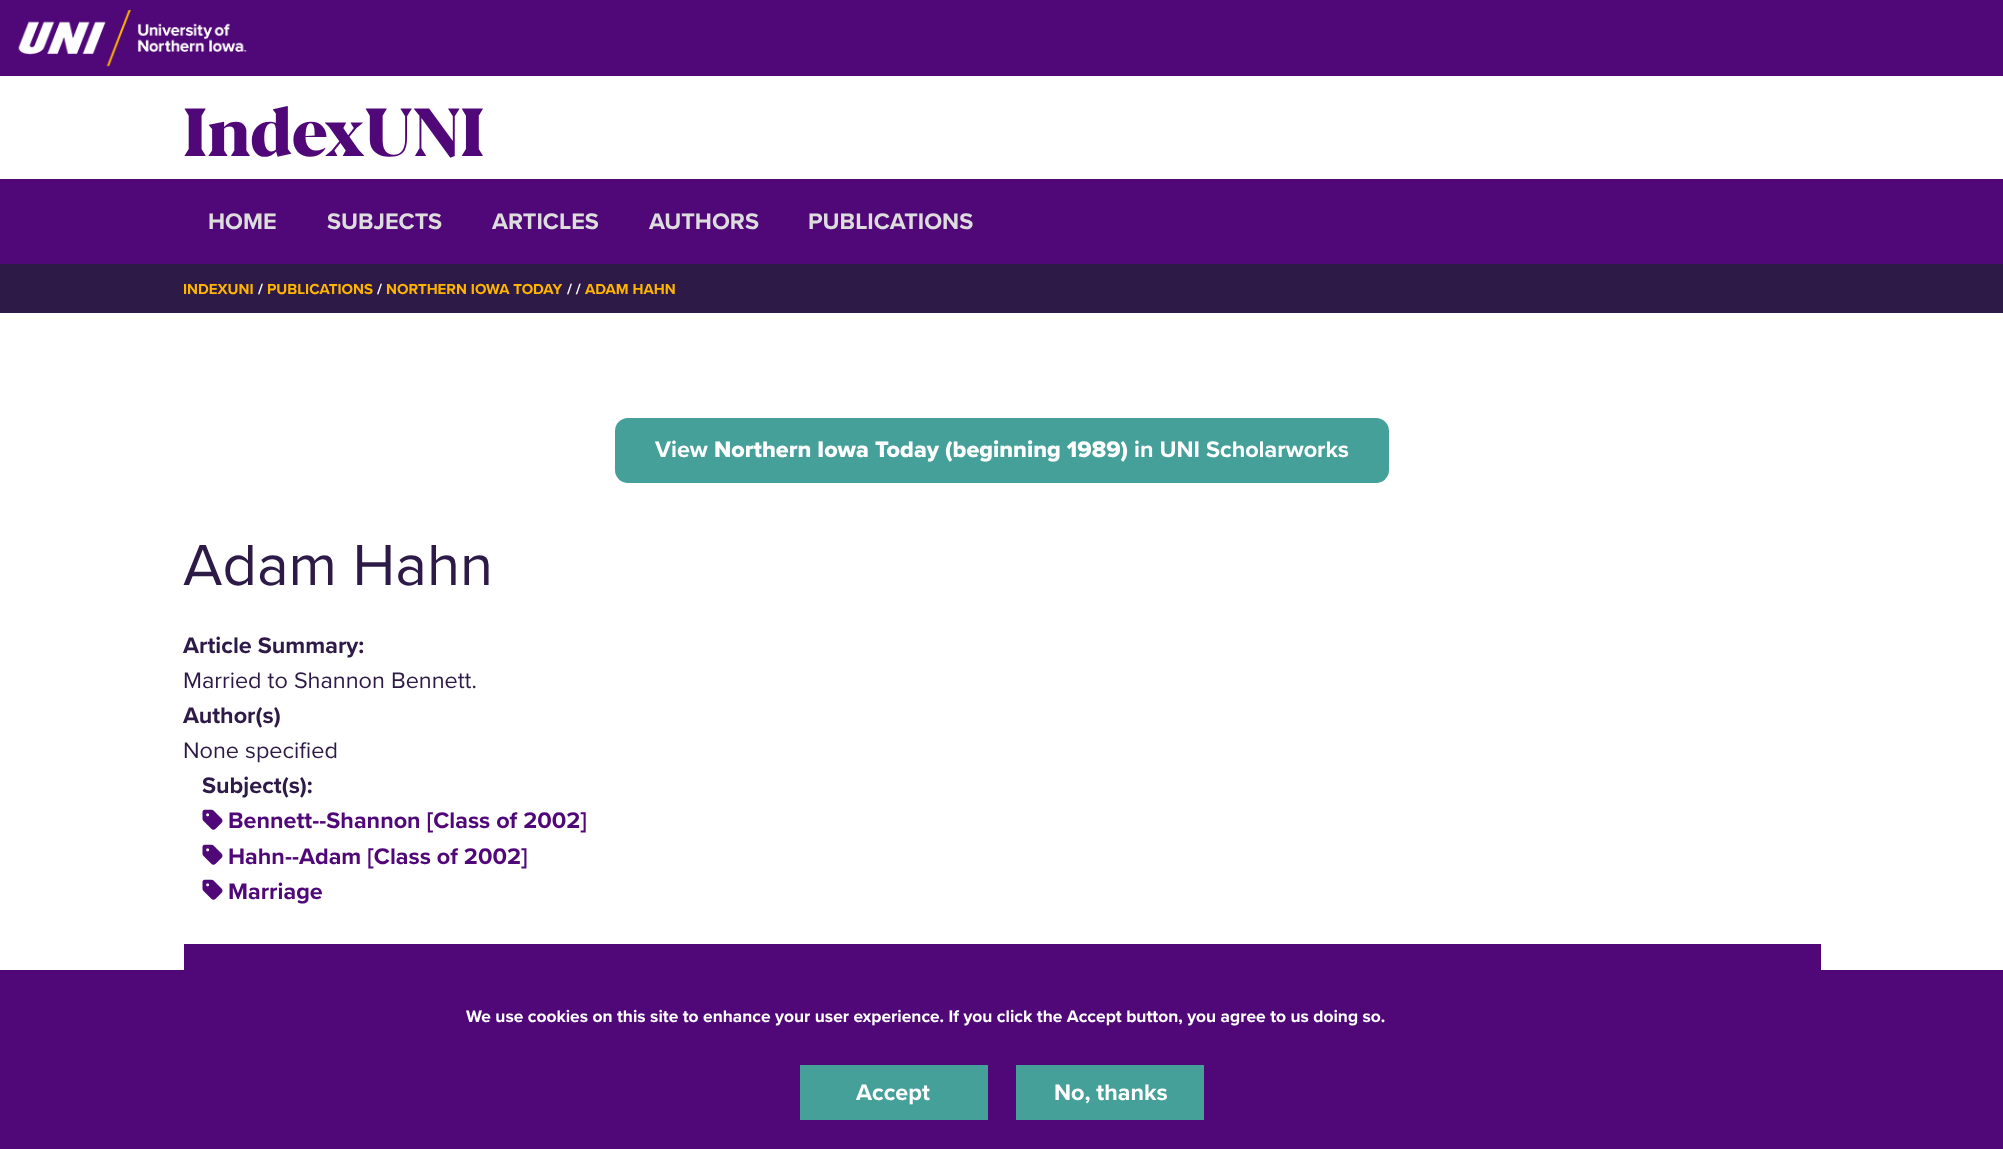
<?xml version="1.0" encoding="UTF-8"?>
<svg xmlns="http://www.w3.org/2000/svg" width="2003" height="1149">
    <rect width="100%" height="100%" fill="#FFFFFF"/>
    <rect x="0" y="0" width="2003" height="76" fill="#500778"/>
    <image x="18" y="10" width="229" height="57" href="img_01.png"/>
    <text x="183" y="156" font-family="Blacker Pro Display" font-size="67.5" font-weight="900" fill="#500778">IndexUNI</text>
    <rect x="0" y="179" width="2003" height="85" fill="#500778"/>
    <text x="208" y="229" font-family="Proxima Nova" font-size="23.4" font-weight="700" fill="#DDDDDD">HOME</text>
    <text x="327" y="229" font-family="Proxima Nova" font-size="23.4" font-weight="700" fill="#DDDDDD">SUBJECTS</text>
    <text x="492" y="229" font-family="Proxima Nova" font-size="23.4" font-weight="700" fill="#DDDDDD">ARTICLES</text>
    <text x="649" y="229" font-family="Proxima Nova" font-size="23.4" font-weight="700" fill="#DDDDDD">AUTHORS</text>
    <text x="808" y="229" font-family="Proxima Nova" font-size="23.4" font-weight="700" fill="#DDDDDD">PUBLICATIONS</text>
    <rect x="0" y="264" width="2003" height="49" fill="#2E1A47"/>
    <text x="183" y="294" font-family="Proxima Nova" font-size="15" font-weight="700" fill="#FFB500">INDEXUNI</text>
    <text x="258" y="294" font-family="Proxima Nova" font-size="15" font-weight="700" fill="#FFFFFF">/</text>
    <text x="267" y="294" font-family="Proxima Nova" font-size="15" font-weight="700" fill="#FFB500">PUBLICATIONS</text>
    <text x="377" y="294" font-family="Proxima Nova" font-size="15" font-weight="700" fill="#FFFFFF">/</text>
    <text x="386" y="294" font-family="Proxima Nova" font-size="15" font-weight="700" fill="#FFB500">NORTHERN IOWA TODAY</text>
    <text x="567" y="294" font-family="Proxima Nova" font-size="15" font-weight="700" fill="#FFFFFF">/ /</text>
    <text x="585" y="294" font-family="Proxima Nova" font-size="15" font-weight="700" fill="#FFB500">ADAM HAHN</text>
    <rect x="615" y="418" width="774" height="65" rx="13" fill="#46A09A"/>
    <text x="655" y="457" font-family="Proxima Nova" font-size="23.4" font-weight="700" fill="#FFFFFF">View</text>
    <text x="714" y="457" font-family="Proxima Nova" font-size="23.4" font-weight="800" fill="#FFFFFF">Northern Iowa Today (beginning 1989)</text>
    <text x="1134" y="457" font-family="Proxima Nova" font-size="23.4" font-weight="700" fill="#FFFFFF">in UNI Scholarworks</text>
    <text x="183" y="585" font-family="Proxima Nova" font-size="60" fill="#2E1A47">Adam Hahn</text>
    <text x="183" y="653" font-family="Proxima Nova" font-size="23.4" font-weight="700" fill="#2E1A47">Article Summary:</text>
    <text x="183" y="688" font-family="Proxima Nova" font-size="23.4" fill="#2E1A47">Married to Shannon Bennett.</text>
    <text x="183" y="723" font-family="Proxima Nova" font-size="23.4" font-weight="700" fill="#2E1A47">Author(s)</text>
    <text x="183" y="758" font-family="Proxima Nova" font-size="23.4" fill="#2E1A47">None specified</text>
    <text x="202" y="793" font-family="Proxima Nova" font-size="23.4" font-weight="700" fill="#2E1A47">Subject(s):</text>
    <image x="202" y="809" width="21" height="21" href="img_02.png"/>
    <text x="228" y="828" font-family="Proxima Nova" font-size="23.4" font-weight="700" fill="#500778">Bennett--Shannon [Class of 2002]</text>
    <image x="202" y="844" width="21" height="21" href="img_02.png"/>
    <text x="228" y="864" font-family="Proxima Nova" font-size="23.4" font-weight="700" fill="#500778">Hahn--Adam [Class of 2002]</text>
    <image x="202" y="879" width="21" height="21" href="img_02.png"/>
    <text x="228" y="899" font-family="Proxima Nova" font-size="23.4" font-weight="700" fill="#500778">Marriage</text>
    <rect x="184" y="944" width="1637" height="26" fill="#500778"/>
    <rect x="0" y="970" width="2003" height="179" fill="#500778"/>
    <text x="466" y="1022" font-family="Proxima Nova" font-size="17.4" font-weight="700" fill="#FFFFFF">We use cookies on this site to enhance your user experience. If you click the Accept button, you agree to us doing so.</text>
    <rect x="800" y="1065" width="188" height="55" fill="#46A09A"/>
    <text x="856" y="1100" font-family="Proxima Nova" font-size="23.4" font-weight="700" fill="#FFFFFF">Accept</text>
    <rect x="1016" y="1065" width="188" height="55" fill="#46A09A"/>
    <text x="1054" y="1100" font-family="Proxima Nova" font-size="23.4" font-weight="700" fill="#FFFFFF">No, thanks</text>
</svg>
